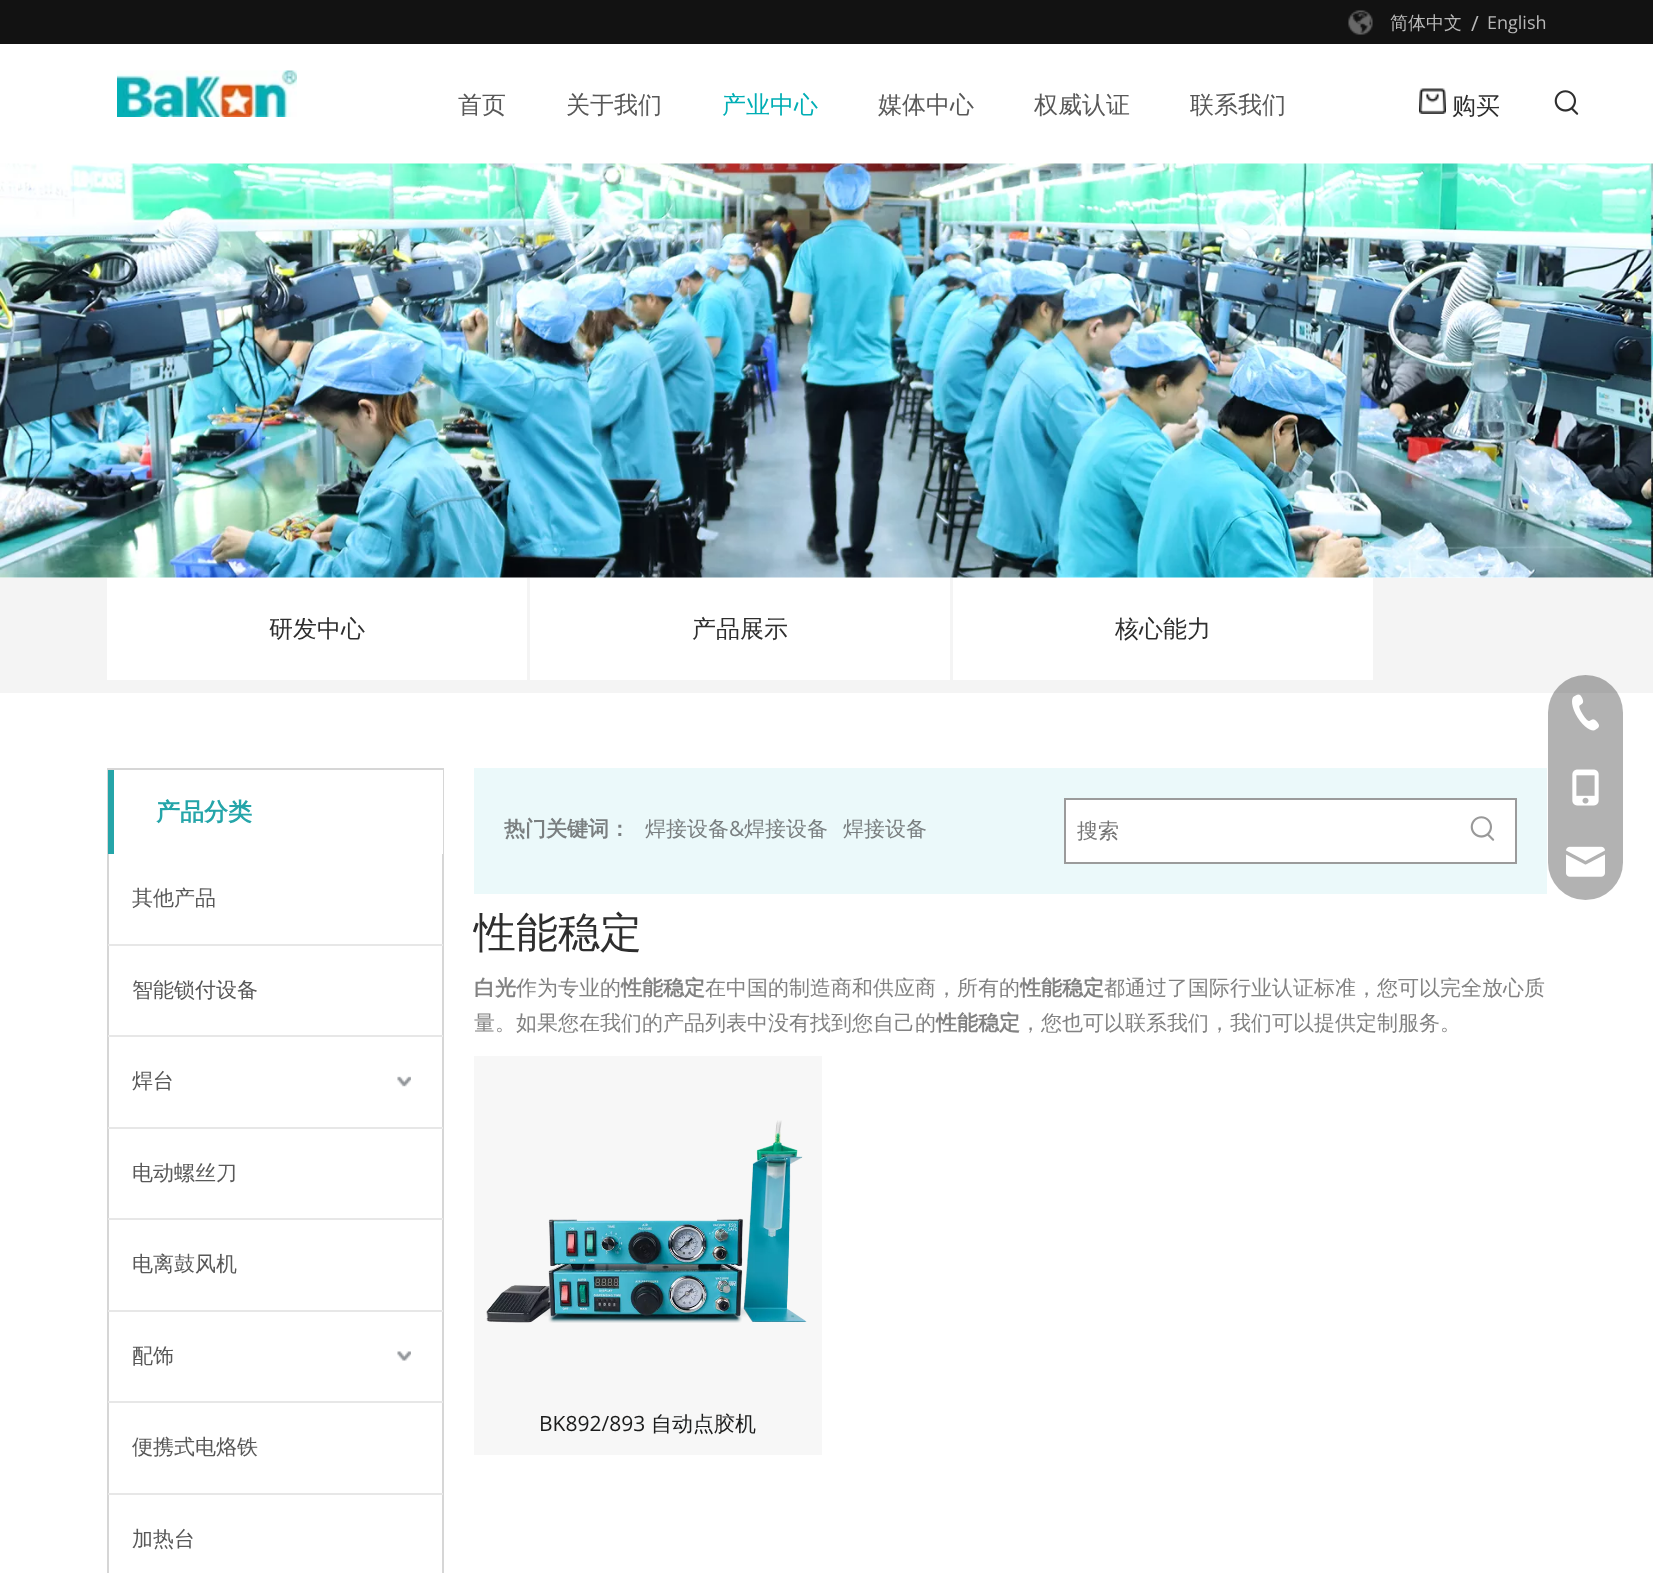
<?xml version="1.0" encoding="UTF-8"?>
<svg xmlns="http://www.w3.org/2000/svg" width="1653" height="1573">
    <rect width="100%" height="100%" fill="#FFFFFF"/>
    <rect x="0" y="0" width="1653" height="44" fill="#121212"/>
    <image x="1348" y="10" width="25" height="25" href="img_01.png"/>
    <text x="1390" y="29" font-family="WenQuanYi Zen Hei" font-size="18" font-weight="500" fill="#B8B8B8">简体中文</text>
    <text x="1471" y="31" font-family="Open Sans" font-size="21" fill="#B8B8B8">/</text>
    <text x="1487" y="29" font-family="Open Sans" font-size="18" fill="#B8B8B8">English</text>
    <image x="117" y="70" width="180" height="47" href="img_02.png"/>
    <text x="458" y="113" font-family="WenQuanYi Zen Hei" font-size="24" font-weight="500" fill="#585858">首页</text>
    <text x="566" y="113" font-family="WenQuanYi Zen Hei" font-size="24" font-weight="500" fill="#585858">关于我们</text>
    <text x="722" y="113" font-family="WenQuanYi Zen Hei" font-size="24" font-weight="500" fill="#00AEB5">产业中心</text>
    <text x="878" y="113" font-family="WenQuanYi Zen Hei" font-size="24" font-weight="500" fill="#585858">媒体中心</text>
    <text x="1034" y="113" font-family="WenQuanYi Zen Hei" font-size="24" font-weight="500" fill="#585858">权威认证</text>
    <text x="1190" y="113" font-family="WenQuanYi Zen Hei" font-size="24" font-weight="500" fill="#585858">联系我们</text>
    <image x="1419" y="88" width="27" height="26" href="img_03.png"/>
    <text x="1452" y="114" font-family="WenQuanYi Zen Hei" font-size="24" font-weight="500" fill="#2E2E2E">购买</text>
    <image x="1554" y="90" width="25" height="25" href="img_04.png"/>
    <image x="0" y="163" width="1653" height="415" href="img_05.png"/>
    <rect x="0" y="578" width="1653" height="115" fill="#F4F4F4"/>
    <rect x="107" y="578" width="420" height="102" fill="#FFFFFF"/>
    <text x="269" y="637" font-family="WenQuanYi Zen Hei" font-size="24" font-weight="500" fill="#2E2E2E">研发中心</text>
    <rect x="530" y="578" width="420" height="102" fill="#FFFFFF"/>
    <text x="692" y="637" font-family="WenQuanYi Zen Hei" font-size="24" font-weight="500" fill="#2E2E2E">产品展示</text>
    <rect x="953" y="578" width="420" height="102" fill="#FFFFFF"/>
    <text x="1115" y="637" font-family="WenQuanYi Zen Hei" font-size="24" font-weight="500" fill="#2E2E2E">核心能力</text>
    <rect x="108" y="769" width="335" height="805" fill="none" stroke="#D6D6D6" stroke-width="2"/>
    <rect x="442" y="770" width="1" height="84" fill="#FFFFFF"/>
    <rect x="108" y="770" width="6" height="84" fill="#25A5A9"/>
    <text x="156" y="820" font-family="WenQuanYi Zen Hei" font-size="24" font-weight="700" fill="#25A5A9">产品分类</text>
    <text x="132" y="905" font-family="WenQuanYi Zen Hei" font-size="21" font-weight="500" fill="#585858">其他产品</text>
    <rect x="108" y="944" width="335" height="2" fill="#E7E7E7"/>
    <text x="132" y="997" font-family="WenQuanYi Zen Hei" font-size="21" font-weight="500" fill="#585858">智能锁付设备</text>
    <rect x="108" y="1035" width="335" height="2" fill="#E7E7E7"/>
    <text x="132" y="1088" font-family="WenQuanYi Zen Hei" font-size="21" font-weight="500" fill="#585858">焊台</text>
    <image x="397" y="1076" width="14" height="11" href="img_06.png"/>
    <rect x="108" y="1127" width="335" height="2" fill="#E7E7E7"/>
    <text x="132" y="1180" font-family="WenQuanYi Zen Hei" font-size="21" font-weight="500" fill="#585858">电动螺丝刀</text>
    <rect x="108" y="1218" width="335" height="2" fill="#E7E7E7"/>
    <text x="132" y="1271" font-family="WenQuanYi Zen Hei" font-size="21" font-weight="500" fill="#585858">电离鼓风机</text>
    <rect x="108" y="1310" width="335" height="2" fill="#E7E7E7"/>
    <text x="132" y="1363" font-family="WenQuanYi Zen Hei" font-size="21" font-weight="500" fill="#585858">配饰</text>
    <image x="397" y="1351" width="14" height="10" href="img_07.png"/>
    <rect x="108" y="1401" width="335" height="2" fill="#E7E7E7"/>
    <text x="132" y="1454" font-family="WenQuanYi Zen Hei" font-size="21" font-weight="500" fill="#585858">便携式电烙铁</text>
    <rect x="108" y="1493" width="335" height="2" fill="#E7E7E7"/>
    <text x="132" y="1546" font-family="WenQuanYi Zen Hei" font-size="21" font-weight="500" fill="#585858">加热台</text>
    <rect x="474" y="768" width="1073" height="126" fill="#EBF9FA"/>
    <text x="504" y="836" font-family="WenQuanYi Zen Hei" font-size="21" font-weight="700" fill="#7A7F80">热门关键词：</text>
    <text x="645" y="836" font-family="WenQuanYi Zen Hei" font-size="21" font-weight="500" fill="#7A7F80">焊接设备</text>
    <text x="729" y="836" font-family="Open Sans" font-size="21" fill="#7A7F80">&amp;</text>
    <text x="744" y="836" font-family="WenQuanYi Zen Hei" font-size="21" font-weight="500" fill="#7A7F80">焊接设备</text>
    <text x="843" y="836" font-family="WenQuanYi Zen Hei" font-size="21" font-weight="500" fill="#7A7F80">焊接设备</text>
    <rect x="1065" y="799" width="451" height="64" fill="#FFFFFF" stroke="#9B9B9B" stroke-width="2"/>
    <text x="1077" y="838" font-family="WenQuanYi Zen Hei" font-size="21" font-weight="500" fill="#757575">搜索</text>
    <image x="1470" y="816" width="25" height="25" href="img_08.png"/>
    <text x="474" y="947" font-family="WenQuanYi Zen Hei" font-size="42" font-weight="500" fill="#2E2E2E">性能稳定</text>
    <text x="474" y="995" font-family="WenQuanYi Zen Hei" font-size="21" font-weight="700" fill="#828282">白光</text>
    <text x="516" y="995" font-family="WenQuanYi Zen Hei" font-size="21" font-weight="500" fill="#828282">作为专业的</text>
    <text x="621" y="995" font-family="WenQuanYi Zen Hei" font-size="21" font-weight="700" fill="#828282">性能稳定</text>
    <text x="705" y="995" font-family="WenQuanYi Zen Hei" font-size="21" font-weight="500" fill="#828282">在中国的制造商和供应商，所有的</text>
    <text x="1020" y="995" font-family="WenQuanYi Zen Hei" font-size="21" font-weight="700" fill="#828282">性能稳定</text>
    <text x="1104" y="995" font-family="WenQuanYi Zen Hei" font-size="21" font-weight="500" fill="#828282">都通过了国际行业认证标准，您可以完全放心质</text>
    <text x="474" y="1030" font-family="WenQuanYi Zen Hei" font-size="21" font-weight="500" fill="#828282">量。如果您在我们的产品列表中没有找到您自己的</text>
    <text x="936" y="1030" font-family="WenQuanYi Zen Hei" font-size="21" font-weight="700" fill="#828282">性能稳定</text>
    <text x="1020" y="1030" font-family="WenQuanYi Zen Hei" font-size="21" font-weight="500" fill="#828282">，您也可以联系我们，我们可以提供定制服务。</text>
    <rect x="474" y="1056" width="348" height="399" fill="#F7F7F7"/>
    <image x="486" y="1120" width="321" height="203" href="img_09.png"/>
    <text x="539" y="1431" font-family="Open Sans" font-size="21" fill="#1B1C1C">BK892/893</text>
    <text x="651" y="1431" font-family="WenQuanYi Zen Hei" font-size="21" font-weight="500" fill="#1B1C1C">自动点胶机</text>
    <rect x="1548" y="675" width="75" height="225" rx="37.5" fill="#000000" fill-opacity="0.3"/>
    <image x="1572" y="694" width="27" height="37" href="img_10.png"/>
    <image x="1572" y="769" width="27" height="37" href="img_11.png"/>
    <image x="1566" y="846" width="39" height="31" href="img_12.png"/>
</svg>
